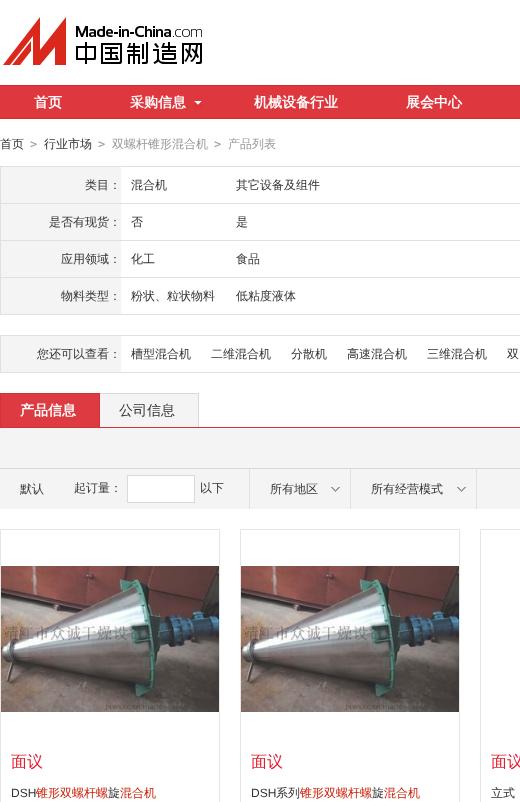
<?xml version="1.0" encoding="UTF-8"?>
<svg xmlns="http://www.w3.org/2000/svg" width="520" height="802">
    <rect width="100%" height="100%" fill="#FFFFFF"/>
    <image x="3" y="17" width="199" height="48" href="img_01.png"/>
    <rect x="0" y="86" width="520" height="32" fill="#DE373D"/>
    <rect x="0" y="85" width="96" height="1" fill="#D32A2F"/>
    <rect x="0" y="118" width="96" height="1" fill="#D32A2F"/>
    <text x="34" y="107" font-family="WenQuanYi Zen Hei" font-size="14" font-weight="700" fill="#FFFFFF">首页</text>
    <text x="130" y="107" font-family="WenQuanYi Zen Hei" font-size="14" font-weight="700" fill="#FFFFFF">采购信息</text>
    <path d="M 194 101 H 202 L 198 105 Z" fill="#FFFFFF"/>
    <path d="M 202 101 V 109 L 198 105 Z" fill="#DE3237"/>
    <rect x="194" y="105" width="8" height="4" fill="#DE3237"/>
    <path d="M 194 109 V 101 L 198 105 Z" fill="#DE3237"/>
    <rect x="96" y="85" width="424" height="1" fill="#D32A2F"/>
    <rect x="96" y="118" width="424" height="1" fill="#D32A2F"/>
    <text x="254" y="107" font-family="WenQuanYi Zen Hei" font-size="14" font-weight="700" fill="#FFFFFF">机械设备行业</text>
    <text x="406" y="107" font-family="WenQuanYi Zen Hei" font-size="14" font-weight="700" fill="#FFFFFF">展会中心</text>
    <text x="0" y="148" font-family="WenQuanYi Zen Hei" font-size="12" font-weight="500" fill="#333333">首页</text>
    <text x="30" y="148" font-family="DejaVu Sans Mono" font-size="12" fill="#999999">&gt;</text>
    <text x="44" y="148" font-family="WenQuanYi Zen Hei" font-size="12" font-weight="500" fill="#333333">行业市场</text>
    <text x="98" y="148" font-family="DejaVu Sans Mono" font-size="12" fill="#999999">&gt;</text>
    <text x="112" y="148" font-family="WenQuanYi Zen Hei" font-size="12" font-weight="500" fill="#999999">双螺杆锥形混合机</text>
    <text x="214" y="148" font-family="DejaVu Sans Mono" font-size="12" fill="#999999">&gt;</text>
    <text x="228" y="148" font-family="WenQuanYi Zen Hei" font-size="12" font-weight="500" fill="#999999">产品列表</text>
    <rect x="0" y="314" width="520" height="1" fill="#E0E0E0"/>
    <rect x="0" y="166" width="1" height="149" fill="#E0E0E0"/>
    <rect x="1" y="167" width="120" height="36" fill="#F4F4F4"/>
    <rect x="1" y="166" width="519" height="1" fill="#E0E0E0"/>
    <text x="85" y="189" font-family="WenQuanYi Zen Hei" font-size="12" font-weight="500" fill="#333333">类目：</text>
    <text x="131" y="189" font-family="WenQuanYi Zen Hei" font-size="12" font-weight="500" fill="#333333">混合机</text>
    <text x="236" y="189" font-family="WenQuanYi Zen Hei" font-size="12" font-weight="500" fill="#333333">其它设备及组件</text>
    <rect x="1" y="204" width="120" height="36" fill="#F4F4F4"/>
    <rect x="1" y="203" width="519" height="1" fill="#E0E0E0"/>
    <text x="49" y="226" font-family="WenQuanYi Zen Hei" font-size="12" font-weight="500" fill="#333333">是否有现货：</text>
    <text x="131" y="226" font-family="WenQuanYi Zen Hei" font-size="12" font-weight="500" fill="#333333">否</text>
    <text x="236" y="226" font-family="WenQuanYi Zen Hei" font-size="12" font-weight="500" fill="#333333">是</text>
    <rect x="1" y="241" width="120" height="36" fill="#F4F4F4"/>
    <rect x="1" y="240" width="519" height="1" fill="#E0E0E0"/>
    <text x="61" y="263" font-family="WenQuanYi Zen Hei" font-size="12" font-weight="500" fill="#333333">应用领域：</text>
    <text x="131" y="263" font-family="WenQuanYi Zen Hei" font-size="12" font-weight="500" fill="#333333">化工</text>
    <text x="236" y="263" font-family="WenQuanYi Zen Hei" font-size="12" font-weight="500" fill="#333333">食品</text>
    <rect x="1" y="278" width="120" height="36" fill="#F4F4F4"/>
    <rect x="1" y="277" width="519" height="1" fill="#E0E0E0"/>
    <text x="61" y="300" font-family="WenQuanYi Zen Hei" font-size="12" font-weight="500" fill="#333333">物料类型：</text>
    <text x="131" y="300" font-family="WenQuanYi Zen Hei" font-size="12" font-weight="500" fill="#333333">粉状、粒状物料</text>
    <text x="236" y="300" font-family="WenQuanYi Zen Hei" font-size="12" font-weight="500" fill="#333333">低粘度液体</text>
    <rect x="0" y="372" width="520" height="1" fill="#E0E0E0"/>
    <rect x="0" y="335" width="1" height="38" fill="#E0E0E0"/>
    <rect x="1" y="336" width="120" height="36" fill="#F4F4F4"/>
    <rect x="1" y="335" width="519" height="1" fill="#E0E0E0"/>
    <text x="37" y="358" font-family="WenQuanYi Zen Hei" font-size="12" font-weight="500" fill="#333333">您还可以查看：</text>
    <text x="131" y="358" font-family="WenQuanYi Zen Hei" font-size="12" font-weight="500" fill="#333333">槽型混合机</text>
    <text x="211" y="358" font-family="WenQuanYi Zen Hei" font-size="12" font-weight="500" fill="#333333">二维混合机</text>
    <text x="291" y="358" font-family="WenQuanYi Zen Hei" font-size="12" font-weight="500" fill="#333333">分散机</text>
    <text x="347" y="358" font-family="WenQuanYi Zen Hei" font-size="12" font-weight="500" fill="#333333">高速混合机</text>
    <text x="427" y="358" font-family="WenQuanYi Zen Hei" font-size="12" font-weight="500" fill="#333333">三维混合机</text>
    <text x="507" y="358" font-family="WenQuanYi Zen Hei" font-size="12" font-weight="500" fill="#333333">双</text>
    <rect x="0" y="427" width="520" height="1" fill="#CF3439"/>
    <rect x="1" y="394" width="98" height="33" fill="#DD3B41"/>
    <rect x="99" y="393" width="100" height="1" fill="#D9D9D9"/>
    <rect x="0" y="393" width="100" height="1" fill="#CF3439"/>
    <rect x="99" y="393" width="1" height="34" fill="#CF3439"/>
    <rect x="0" y="393" width="1" height="34" fill="#CF3439"/>
    <text x="20" y="415" font-family="WenQuanYi Zen Hei" font-size="14" font-weight="700" fill="#FFFFFF">产品信息</text>
    <rect x="100" y="394" width="98" height="33" fill="#F4F4F4"/>
    <rect x="198" y="393" width="1" height="34" fill="#D9D9D9"/>
    <text x="119" y="415" font-family="WenQuanYi Zen Hei" font-size="14" font-weight="500" fill="#333333">公司信息</text>
    <rect x="0" y="428" width="520" height="40" fill="#F4F4F4"/>
    <rect x="0" y="468" width="520" height="1" fill="#D9D9D9"/>
    <rect x="0" y="469" width="520" height="40" fill="#F4F4F4"/>
    <text x="20" y="493" font-family="WenQuanYi Zen Hei" font-size="12" font-weight="500" fill="#333333">默认</text>
    <rect x="249" y="469" width="1" height="40" fill="#E0E0E0"/>
    <text x="74" y="492" font-family="WenQuanYi Zen Hei" font-size="12" font-weight="500" fill="#333333">起订量：</text>
    <rect x="127.5" y="475.5" width="67" height="27" fill="#FFFFFF" stroke="#D9D9D9"/>
    <text x="200" y="492" font-family="WenQuanYi Zen Hei" font-size="12" font-weight="500" fill="#333333">以下</text>
    <rect x="350" y="469" width="1" height="40" fill="#E0E0E0"/>
    <text x="270" y="493" font-family="WenQuanYi Zen Hei" font-size="12" font-weight="500" fill="#333333">所有地区</text>
    <image x="331" y="487" width="9" height="5" href="img_02.png"/>
    <rect x="476" y="469" width="1" height="40" fill="#E0E0E0"/>
    <text x="371" y="493" font-family="WenQuanYi Zen Hei" font-size="12" font-weight="500" fill="#333333">所有经营模式</text>
    <image x="457" y="487" width="9" height="5" href="img_02.png"/>
    <rect x="0.5" y="529.5" width="219" height="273" fill="none" stroke="#E6E6E6"/>
    <image x="1" y="566" width="218" height="146" href="img_03.png"/>
    <text x="11" y="767" font-family="WenQuanYi Zen Hei" font-size="16" font-weight="500" fill="#E41C2E">面议</text>
    <text x="11" y="797" font-family="Liberation Sans" font-size="12" fill="#333333">DSH</text>
    <text x="36" y="797" font-family="WenQuanYi Zen Hei" font-size="12" font-weight="500" fill="#CC220B">锥形双螺杆螺</text>
    <text x="108" y="797" font-family="WenQuanYi Zen Hei" font-size="12" font-weight="500" fill="#333333">旋</text>
    <text x="120" y="797" font-family="WenQuanYi Zen Hei" font-size="12" font-weight="500" fill="#CC220B">混合机</text>
    <rect x="240.5" y="529.5" width="219" height="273" fill="none" stroke="#E6E6E6"/>
    <image x="241" y="566" width="218" height="146" href="img_03.png"/>
    <text x="251" y="767" font-family="WenQuanYi Zen Hei" font-size="16" font-weight="500" fill="#E41C2E">面议</text>
    <text x="251" y="797" font-family="Liberation Sans" font-size="12" fill="#333333">DSH</text>
    <text x="276" y="797" font-family="WenQuanYi Zen Hei" font-size="12" font-weight="500" fill="#333333">系列</text>
    <text x="300" y="797" font-family="WenQuanYi Zen Hei" font-size="12" font-weight="500" fill="#CC220B">锥形双螺杆螺</text>
    <text x="372" y="797" font-family="WenQuanYi Zen Hei" font-size="12" font-weight="500" fill="#333333">旋</text>
    <text x="384" y="797" font-family="WenQuanYi Zen Hei" font-size="12" font-weight="500" fill="#CC220B">混合机</text>
    <rect x="480.5" y="529.5" width="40" height="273" fill="none" stroke="#E6E6E6"/>
    <text x="491" y="767" font-family="WenQuanYi Zen Hei" font-size="16" font-weight="500" fill="#E41C2E">面议</text>
    <text x="491" y="797" font-family="WenQuanYi Zen Hei" font-size="12" font-weight="500" fill="#333333">立式</text>
</svg>
